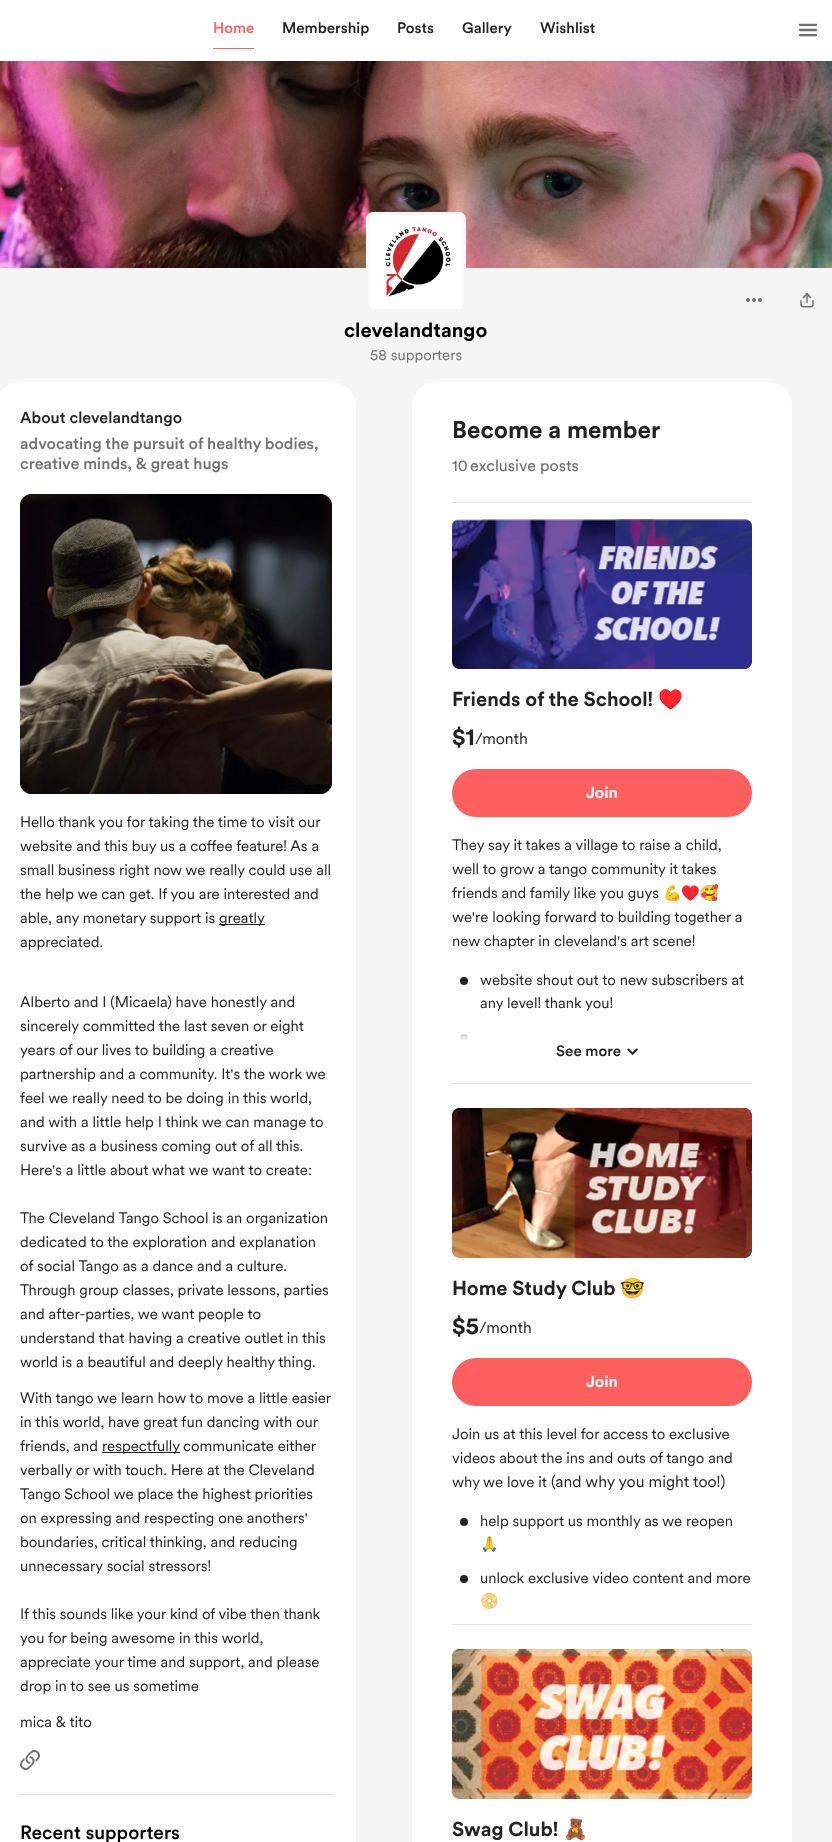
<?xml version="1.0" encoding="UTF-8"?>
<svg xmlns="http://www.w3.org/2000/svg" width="832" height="1842">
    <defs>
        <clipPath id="clip1"><rect x="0" y="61" width="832" height="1"/></clipPath>
        <filter id="blur1" x="-50%" y="-200%" width="200%" height="500%"><feGaussianBlur stdDeviation="0.5"/></filter>
        <linearGradient id="g1" gradientUnits="userSpaceOnUse" x1="602" y1="1011" x2="602" y2="1071"><stop offset="0" stop-color="#FFFFFF" stop-opacity="0"/><stop offset="0.5" stop-color="#FFFFFF"/></linearGradient>
    </defs>
    <rect width="100%" height="100%" fill="#FFFFFF"/>
    <image x="0" y="61" width="832" height="207" href="img_02.png"/>
    <g clip-path="url(#clip1)">
        <rect x="0" y="1" width="832" height="61" fill="#000000" fill-opacity="0.06" filter="url(#blur1)"/>
    </g>
    <text x="213" y="33" font-family="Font" font-size="15" font-weight="500" fill="#FF5F5F">Home</text>
    <rect x="213" y="48" width="41" height="1" fill="#FF5F5F"/>
    <text x="282" y="33" font-family="Font" font-size="15" font-weight="500" fill="#222222">Membership</text>
    <text x="397" y="33" font-family="Font" font-size="15" font-weight="500" fill="#222222">Posts</text>
    <text x="462" y="33" font-family="Font" font-size="15" font-weight="500" fill="#222222">Gallery</text>
    <text x="540" y="33" font-family="Font" font-size="15" font-weight="500" fill="#222222">Wishlist</text>
    <image x="798" y="23" width="20" height="14" href="img_01.png"/>
    <rect x="0" y="268" width="832" height="1574" fill="#F5F5F5"/>
    <image x="746" y="298" width="16" height="4" href="img_03.png"/>
    <image x="800" y="293" width="14" height="15" href="img_04.png"/>
    <image x="366" y="212" width="100" height="100" href="img_05.png"/>
    <rect x="367.5" y="213.5" width="97" height="97" rx="6.5" fill="none" stroke="#F5F5F5" stroke-width="3"/>
    <image x="369" y="215" width="94" height="94" href="img_06.png"/>
    <text x="344" y="337" font-family="Font" font-size="20" font-weight="700" fill="#000000">clevelandtango</text>
    <text x="370" y="360" font-family="Font" font-size="15" fill="#717171">58 supporters</text>
    <rect x="-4" y="382" width="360" height="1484" rx="24" fill="#FFFFFF"/>
    <rect x="20" y="1794" width="312" height="1" fill="#E4E4E4"/>
    <text x="20" y="423" font-family="Font" font-size="16" font-weight="500" fill="#222222">About clevelandtango</text>
    <text font-family="Font" font-size="16" font-weight="500" fill="#717171">
        <tspan x="20" y="449">advocating the pursuit of healthy bodies,</tspan>
        <tspan x="20" y="469">creative minds, &amp; great hugs</tspan>
    </text>
    <image x="20" y="494" width="312" height="300" href="img_07.png"/>
    <image x="20" y="494" width="312" height="300" href="img_08.png"/>
    <text font-family="Font" font-size="15" fill="#222222">
        <tspan x="20" y="827">Hello thank you for taking the time to visit our</tspan>
        <tspan x="20" y="851">website and this buy us a coffee feature! As a</tspan>
        <tspan x="20" y="875">small business right now we really could use all</tspan>
        <tspan x="20" y="899">the help we can get. If you are interested and</tspan>
        <tspan x="20" y="923">able, any monetary support is</tspan>
    </text>
    <rect x="219" y="924" width="46" height="1" fill="#222222"/>
    <text x="219" y="923" font-family="Font" font-size="15" fill="#222222">greatly</text>
    <text x="20" y="947" font-family="Font" font-size="15" fill="#222222">appreciated.</text>
    <text font-family="Font" font-size="15" fill="#222222">
        <tspan x="20" y="1007">Alberto and I (Micaela) have honestly and</tspan>
        <tspan x="20" y="1031">sincerely committed the last seven or eight</tspan>
        <tspan x="20" y="1055">years of our lives to building a creative</tspan>
        <tspan x="20" y="1079">partnership and a community. It's the work we</tspan>
        <tspan x="20" y="1103">feel we really need to be doing in this world,</tspan>
        <tspan x="20" y="1127">and with a little help I think we can manage to</tspan>
        <tspan x="20" y="1151">survive as a business coming out of all this.</tspan>
        <tspan x="20" y="1175">Here's a little about what we want to create:</tspan>
    </text>
    <text font-family="Font" font-size="15" fill="#222222">
        <tspan x="20" y="1223">The Cleveland Tango School is an organization</tspan>
        <tspan x="20" y="1247">dedicated to the exploration and explanation</tspan>
        <tspan x="20" y="1271">of social Tango as a dance and a culture.</tspan>
        <tspan x="20" y="1295">Through group classes, private lessons, parties</tspan>
        <tspan x="20" y="1319">and after-parties, we want people to</tspan>
        <tspan x="20" y="1343">understand that having a creative outlet in this</tspan>
        <tspan x="20" y="1367">world is a beautiful and deeply healthy thing.</tspan>
    </text>
    <text font-family="Font" font-size="15" fill="#222222">
        <tspan x="20" y="1403">With tango we learn how to move a little easier</tspan>
        <tspan x="20" y="1427">in this world, have great fun dancing with our</tspan>
        <tspan x="20" y="1451">friends, and</tspan>
    </text>
    <rect x="102" y="1452" width="78" height="1" fill="#222222"/>
    <text x="102" y="1451" font-family="Font" font-size="15" fill="#222222">respectfully</text>
    <text x="183" y="1451" font-family="Font" font-size="15" fill="#222222">communicate either</text>
    <text font-family="Font" font-size="15" fill="#222222">
        <tspan x="20" y="1475">verbally or with touch. Here at the Cleveland</tspan>
        <tspan x="20" y="1499">Tango School we place the highest priorities</tspan>
        <tspan x="20" y="1523">on expressing and respecting one anothers'</tspan>
        <tspan x="20" y="1547">boundaries, critical thinking, and reducing</tspan>
        <tspan x="20" y="1571">unnecessary social stressors!</tspan>
    </text>
    <text font-family="Font" font-size="15" fill="#222222">
        <tspan x="20" y="1619">If this sounds like your kind of vibe then thank</tspan>
        <tspan x="20" y="1643">you for being awesome in this world,</tspan>
        <tspan x="20" y="1667">appreciate your time and support, and please</tspan>
        <tspan x="20" y="1691">drop in to see us sometime</tspan>
    </text>
    <text x="20" y="1727" font-family="Font" font-size="15" fill="#222222">mica &amp; tito</text>
    <image x="20" y="1750" width="20" height="20" href="img_09.png"/>
    <text x="20" y="1839" font-family="Font" font-size="19" font-weight="500" fill="#000000">Recent supporters</text>
    <rect x="412" y="382" width="380" height="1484" rx="24" fill="#FFFFFF"/>
    <text x="452" y="438" font-family="Font" font-size="24" font-weight="700" fill="#222222">Become a member</text>
    <text x="452" y="471" font-family="'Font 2'" font-size="16" fill="#717171">10</text>
    <text x="470" y="471" font-family="'Font 2'" font-size="16" fill="#717171">exclusive posts</text>
    <rect x="452" y="502" width="300" height="1" fill="#E4E4E4"/>
    <rect x="452" y="1083" width="300" height="1" fill="#E4E4E4"/>
    <image x="452" y="519" width="300" height="150" href="img_10.png"/>
    <image x="452" y="519" width="300" height="150" href="img_11.png"/>
    <text x="452" y="706" font-family="Font" font-size="20" font-weight="700" fill="#222222">Friends of the School!</text>
    <text x="658" y="706" font-family="Noto Color Emoji" font-size="20" fill="#222222">♥️</text>
    <text x="452" y="745" font-family="Font" font-size="24" font-weight="700" fill="#222222">$1</text>
    <text x="475" y="744" font-family="Font" font-size="16" fill="#222222">/month</text>
    <rect x="452" y="769" width="300" height="48" rx="24" fill="#FF5F5F"/>
    <text x="586" y="798" font-family="Font" font-size="16" font-weight="700" fill="#FFFFFF">Join</text>
    <text font-family="Font" font-size="15" fill="#222222">
        <tspan x="452" y="850">They say it takes a village to raise a child,</tspan>
        <tspan x="452" y="874">well to grow a tango community it takes</tspan>
        <tspan x="452" y="898">friends and family like you guys</tspan>
    </text>
    <text x="663" y="898" font-family="Noto Color Emoji" font-size="15" fill="#222222">💪♥️🥰</text>
    <text font-family="Font" font-size="15" fill="#222222">
        <tspan x="452" y="922">we're looking forward to building together a</tspan>
        <tspan x="452" y="946">new chapter in cleveland's art scene!</tspan>
    </text>
    <circle cx="464" cy="981" r="4" fill="#222222"/>
    <text font-family="Font" font-size="15" fill="#222222">
        <tspan x="480" y="985">website shout out to new subscribers at</tspan>
        <tspan x="480" y="1008">any level! thank you!</tspan>
    </text>
    <circle cx="464" cy="1038" r="4" fill="#222222"/>
    <rect x="460" y="1034" width="8" height="8" fill="url(#g1)"/>
    <text x="556" y="1056" font-family="Font" font-size="15" font-weight="500" fill="#222222">See more</text>
    <image x="627" y="1048" width="11" height="7" href="img_12.png"/>
    <rect x="452" y="1624" width="300" height="1" fill="#E4E4E4"/>
    <image x="452" y="1108" width="300" height="150" href="img_13.png"/>
    <image x="452" y="1108" width="300" height="150" href="img_14.png"/>
    <text x="452" y="1295" font-family="Font" font-size="20" font-weight="700" fill="#222222">Home Study Club</text>
    <text x="620" y="1295" font-family="Noto Color Emoji" font-size="20" fill="#222222">🤓</text>
    <text x="452" y="1334" font-family="Font" font-size="24" font-weight="700" fill="#222222">$5</text>
    <text x="479" y="1333" font-family="Font" font-size="16" fill="#222222">/month</text>
    <rect x="452" y="1358" width="300" height="48" rx="24" fill="#FF5F5F"/>
    <text x="586" y="1387" font-family="Font" font-size="16" font-weight="700" fill="#FFFFFF">Join</text>
    <text font-family="Font" font-size="15" fill="#222222">
        <tspan x="452" y="1439">Join us at this level for access to exclusive</tspan>
        <tspan x="452" y="1463">videos about the ins and outs of tango and</tspan>
        <tspan x="452" y="1487">why we love it</tspan>
    </text>
    <text x="551" y="1487" font-family="Font" font-size="16" fill="#222222">(and why you might too!)</text>
    <circle cx="464" cy="1522" r="4" fill="#222222"/>
    <text x="480" y="1526" font-family="Font" font-size="15" fill="#222222">help support us monthly as we reopen</text>
    <text x="480" y="1549" font-family="Noto Color Emoji" font-size="15" fill="#222222">🙏</text>
    <circle cx="464" cy="1579" r="4" fill="#222222"/>
    <text x="480" y="1583" font-family="Font" font-size="15" fill="#222222">unlock exclusive video content and more</text>
    <text x="480" y="1606" font-family="Noto Color Emoji" font-size="15" fill="#222222">📀</text>
    <image x="452" y="1649" width="300" height="150" href="img_15.png"/>
    <image x="452" y="1649" width="300" height="150" href="img_16.png"/>
    <text x="452" y="1836" font-family="Font" font-size="20" font-weight="700" fill="#222222">Swag Club!</text>
    <text x="563" y="1836" font-family="Noto Color Emoji" font-size="20" fill="#222222">🧸</text>
</svg>
